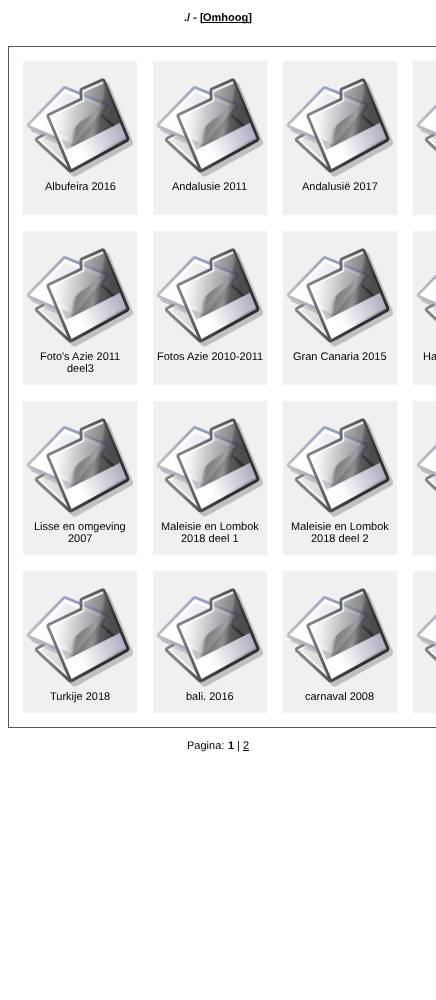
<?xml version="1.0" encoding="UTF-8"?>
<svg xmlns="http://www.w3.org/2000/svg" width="436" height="1000">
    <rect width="100%" height="100%" fill="#FFFFFF"/>
    <text x="184" y="21" font-family="Liberation Sans" font-size="11" font-weight="700" fill="#000000">./ - [</text>
    <rect x="203" y="22" width="46" height="1" fill="#000000"/>
    <text x="203" y="21" font-family="Liberation Sans" font-size="11" font-weight="700" fill="#000000">Omhoog]</text>
    <rect x="8.5" y="46.5" width="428" height="681" fill="none" stroke="#555555"/>
    <rect x="23" y="61" width="114" height="154" fill="#F0F0F0"/>
    <image x="26" y="78" width="107" height="99" href="img_01.png"/>
    <text x="45" y="190" font-family="Liberation Sans" font-size="11" fill="#000000">Albufeira 2016</text>
    <rect x="153" y="61" width="114" height="154" fill="#F0F0F0"/>
    <image x="156" y="78" width="107" height="99" href="img_01.png"/>
    <text x="172" y="190" font-family="Liberation Sans" font-size="11" fill="#000000">Andalusie 2011</text>
    <rect x="283" y="61" width="114" height="154" fill="#F0F0F0"/>
    <image x="286" y="78" width="107" height="99" href="img_01.png"/>
    <text x="302" y="190" font-family="Liberation Sans" font-size="11" fill="#000000">Andalusië 2017</text>
    <rect x="413" y="61" width="23" height="154" fill="#F0F0F0"/>
    <image x="416" y="104" width="20" height="48" href="img_02.png"/>
    <rect x="23" y="231" width="114" height="154" fill="#F0F0F0"/>
    <image x="26" y="248" width="107" height="99" href="img_01.png"/>
    <text x="40" y="360" font-family="Liberation Sans" font-size="11" fill="#000000">Foto's Azie 2011</text>
    <text x="67" y="372" font-family="Liberation Sans" font-size="11" fill="#000000">deel3</text>
    <rect x="153" y="231" width="114" height="154" fill="#F0F0F0"/>
    <image x="156" y="248" width="107" height="99" href="img_01.png"/>
    <text x="157" y="360" font-family="Liberation Sans" font-size="11" fill="#000000">Fotos Azie 2010-2011</text>
    <rect x="283" y="231" width="114" height="154" fill="#F0F0F0"/>
    <image x="286" y="248" width="107" height="99" href="img_01.png"/>
    <text x="293" y="360" font-family="Liberation Sans" font-size="11" fill="#000000">Gran Canaria 2015</text>
    <rect x="413" y="231" width="23" height="154" fill="#F0F0F0"/>
    <image x="416" y="274" width="20" height="48" href="img_02.png"/>
    <text x="423" y="360" font-family="Liberation Sans" font-size="11" fill="#000000">Ha</text>
    <rect x="23" y="401" width="114" height="154" fill="#F0F0F0"/>
    <image x="26" y="418" width="107" height="99" href="img_01.png"/>
    <text x="34" y="530" font-family="Liberation Sans" font-size="11" fill="#000000">Lisse en omgeving</text>
    <text x="68" y="542" font-family="Liberation Sans" font-size="11" fill="#000000">2007</text>
    <rect x="153" y="401" width="114" height="154" fill="#F0F0F0"/>
    <image x="156" y="418" width="107" height="99" href="img_01.png"/>
    <text x="161" y="530" font-family="Liberation Sans" font-size="11" fill="#000000">Maleisie en Lombok</text>
    <text x="181" y="542" font-family="Liberation Sans" font-size="11" fill="#000000">2018 deel 1</text>
    <rect x="283" y="401" width="114" height="154" fill="#F0F0F0"/>
    <image x="286" y="418" width="107" height="99" href="img_01.png"/>
    <text x="291" y="530" font-family="Liberation Sans" font-size="11" fill="#000000">Maleisie en Lombok</text>
    <text x="311" y="542" font-family="Liberation Sans" font-size="11" fill="#000000">2018 deel 2</text>
    <rect x="413" y="401" width="23" height="154" fill="#F0F0F0"/>
    <image x="416" y="444" width="20" height="48" href="img_02.png"/>
    <rect x="23" y="571" width="114" height="142" fill="#F0F0F0"/>
    <image x="26" y="588" width="107" height="99" href="img_01.png"/>
    <text x="50" y="700" font-family="Liberation Sans" font-size="11" fill="#000000">Turkije 2018</text>
    <rect x="153" y="571" width="114" height="142" fill="#F0F0F0"/>
    <image x="156" y="588" width="107" height="99" href="img_01.png"/>
    <text x="186" y="700" font-family="Liberation Sans" font-size="11" fill="#000000">bali. 2016</text>
    <rect x="283" y="571" width="114" height="142" fill="#F0F0F0"/>
    <image x="286" y="588" width="107" height="99" href="img_01.png"/>
    <text x="305" y="700" font-family="Liberation Sans" font-size="11" fill="#000000">carnaval 2008</text>
    <rect x="413" y="571" width="23" height="142" fill="#F0F0F0"/>
    <image x="416" y="614" width="20" height="48" href="img_02.png"/>
    <text x="187" y="749" font-family="Liberation Sans" font-size="11" fill="#000000">Pagina:</text>
    <text x="228" y="749" font-family="Liberation Sans" font-size="11" font-weight="700" fill="#000000">1</text>
    <text x="237" y="749" font-family="Liberation Sans" font-size="11" fill="#000000">| 2</text>
    <rect x="243" y="750" width="6" height="1" fill="#000000"/>
</svg>
